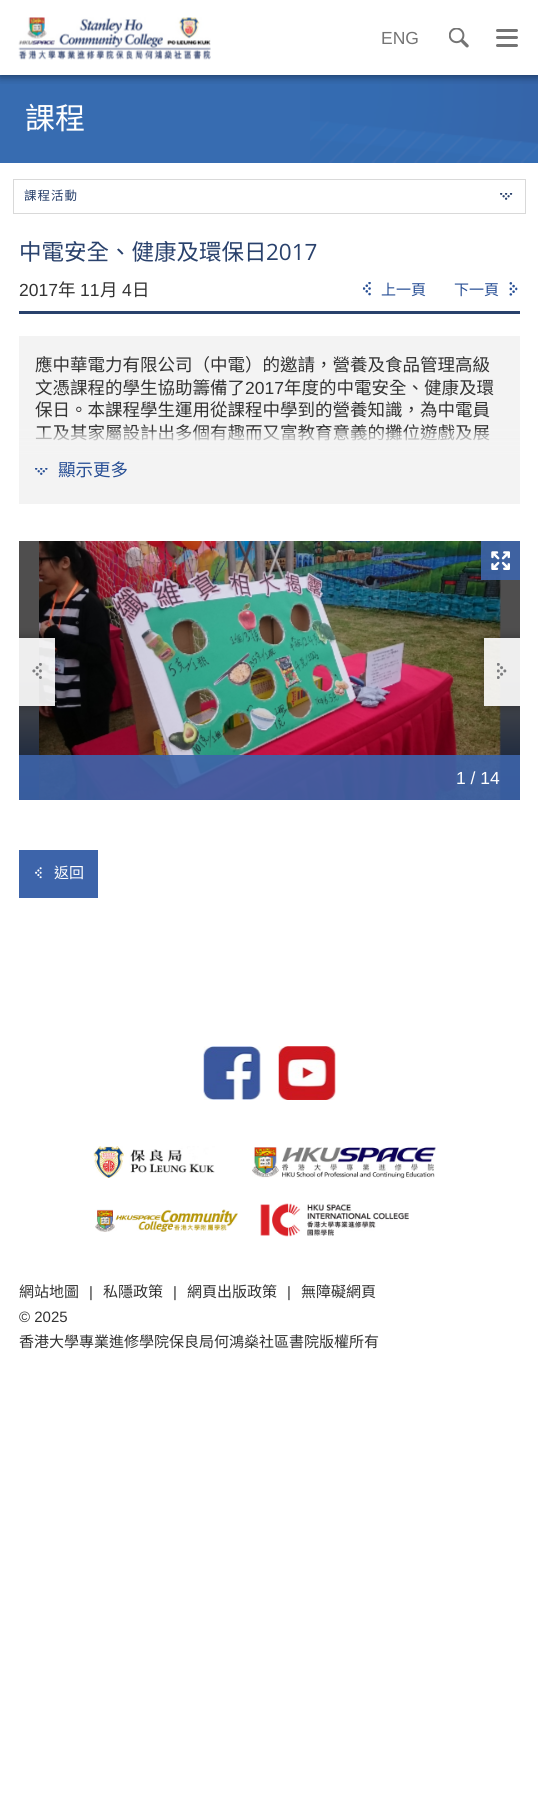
import math
import cairo

surface = cairo.ImageSurface(cairo.FORMAT_RGB24, 538, 1819)
ctx = cairo.Context(surface)
options = cairo.FontOptions()
options.set_hint_metrics(cairo.HINT_METRICS_OFF)
options.set_hint_style(cairo.HINT_STYLE_NONE)
ctx.set_font_options(options)
ctx.set_miter_limit(4)


def spaced_text(x, y, s, letter, word):
    ctx.move_to(x, y)
    for ch in s:
        ctx.show_text(ch)
        ctx.rel_move_to(letter + word * (ch == ' '), 0)


def round_rect(x, y, w, h, r):
    ctx.new_sub_path()
    for i, (u, v) in enumerate([(x + w - r, y + h - r), (x + r, y + h - r), (x + r, y + r), (x + w - r, y + r)]):
        ctx.arc(u, v, r, i * math.pi / 2, (i + 1) * math.pi / 2)
    ctx.close_path()


def shadow(x, y, w, h, r, blur, alpha):
    ctx.push_group_with_content(cairo.CONTENT_ALPHA)
    ctx.set_operator(cairo.OPERATOR_SOURCE)
    for i in range(15, -16, -2):
        e = blur * i / 6
        if min(w, h) + 2 * e > 0:
            ctx.set_source_rgba(0, 0, 0, alpha * math.erfc((i - 1) / 8.5) / 2)
            round_rect(x - e, y - e, w + 2 * e, h + 2 * e, max(0, min(r + e + blur * .6, min(w, h) / 2 + e)))
            ctx.fill()
    ctx.mask(ctx.pop_group())


def picture(path, x, y, w, h):
    ctx.save()
    ctx.set_source_surface(cairo.ImageSurface.create_from_png(path), x, y)
    ctx.rectangle(x, y, w, h)
    ctx.fill()
    ctx.restore()


ctx.set_source_rgb(1, 1, 1)
ctx.paint()
ctx.set_source_rgb(0.216, 0.424, 0.694)
ctx.rectangle(0, 75, 310, 88)
ctx.fill()
picture("img3.png", 310, 75, 228, 88)
ctx.save()
ctx.rectangle(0, 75, 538, 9)
ctx.clip()
ctx.set_source_rgb(0, 0, 0)
shadow(0, 0, 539, 75, 0, 5, 0.61)
ctx.restore()
picture("img1.png", 18, 17, 193, 43)
ctx.select_font_face("Liberation Sans")
ctx.set_font_size(17.5)
ctx.set_source_rgb(0.455, 0.455, 0.455)
ctx.move_to(381, 44)
ctx.show_text("ENG")
picture("img2.png", 449, 28, 20, 20)
round_rect(496, 36, 22, 3, 1.5)
ctx.fill()
round_rect(496, 29, 22, 3, 1.5)
ctx.fill()
round_rect(496, 44, 22, 3, 1.5)
ctx.fill()
ctx.select_font_face("Noto Sans CJK HK")
ctx.set_font_size(30)
ctx.set_source_rgb(1, 1, 1)
ctx.move_to(25, 129)
ctx.show_text("課程")
ctx.rectangle(13.5, 179.5, 512, 34)
ctx.set_source_rgb(0.851, 0.851, 0.851)
ctx.set_line_width(1)
ctx.stroke()
ctx.set_font_size(12.5)
ctx.set_source_rgb(0.161, 0.255, 0.424)
spaced_text(24, 200, "課程活動", 1, 0)
picture("img4.png", 500, 193, 13, 7)
ctx.rectangle(19, 311, 501, 3)
ctx.fill()
ctx.set_font_size(22.5)
ctx.move_to(19, 260)
ctx.show_text("中電安全、健康及環保日")
ctx.select_font_face("Open Sans")
ctx.move_to(266, 260)
ctx.show_text("2017")
ctx.select_font_face("Liberation Sans")
ctx.set_font_size(17.5)
ctx.set_source_rgb(0.2, 0.2, 0.2)
ctx.move_to(19, 296)
ctx.show_text("2017")
ctx.select_font_face("Noto Sans CJK HK")
ctx.move_to(58, 296)
ctx.show_text("年")
ctx.select_font_face("Liberation Sans")
ctx.move_to(80, 296)
ctx.show_text("11")
ctx.select_font_face("Noto Sans CJK HK")
ctx.move_to(100, 296)
ctx.show_text("月")
ctx.select_font_face("Liberation Sans")
ctx.move_to(122, 296)
ctx.show_text("4")
ctx.select_font_face("Noto Sans CJK HK")
ctx.move_to(132, 296)
ctx.show_text("日")
picture("img5.png", 362, 282, 9, 14)
ctx.set_font_size(15)
ctx.set_source_rgb(0.157, 0.31, 0.584)
ctx.move_to(381, 295)
ctx.show_text("上一頁")
ctx.move_to(454, 295)
ctx.show_text("下一頁")
picture("img6.png", 509, 282, 9, 14)
ctx.set_source_rgb(0.953, 0.953, 0.953)
ctx.rectangle(19, 336, 501, 118)
ctx.fill()
ctx.set_font_size(17.5)
ctx.set_source_rgb(0.2, 0.2, 0.2)
ctx.move_to(35, 371)
ctx.show_text("應中華電力有限公司（中電）的邀請，營養及食品管理高級")
ctx.move_to(35, 394)
ctx.show_text("文憑課程的學生協助籌備了")
ctx.select_font_face("Liberation Sans")
ctx.move_to(245, 394)
ctx.show_text("2017")
ctx.select_font_face("Noto Sans CJK HK")
ctx.move_to(284, 394)
ctx.show_text("年度的中電安全、健康及環")
ctx.move_to(35, 416)
ctx.show_text("保日。本課程學生運用從課程中學到的營養知識，為中電員")
ctx.move_to(35, 439)
ctx.show_text("工及其家屬設計出多個有趣而又富教育意義的攤位遊戲及展")
gradient = cairo.LinearGradient(269, 429, 269, 504)
gradient.add_color_stop_rgba(0, 0.953, 0.953, 0.953, 0)
gradient.add_color_stop_rgba(0.07, 0.953, 0.953, 0.953, 0.5)
gradient.add_color_stop_rgba(0.16, 0.953, 0.953, 0.953, 0.8)
gradient.add_color_stop_rgba(0.21, 0.953, 0.953, 0.953, 0.9)
gradient.add_color_stop_rgba(0.34, 0.953, 0.953, 0.953, 1)
gradient.add_color_stop_rgba(1, 0.953, 0.953, 0.953, 1)
ctx.set_source(gradient)
ctx.rectangle(19, 429, 501, 75)
ctx.fill()
picture("img7.png", 35, 468, 13, 7)
ctx.set_source_rgb(0.157, 0.31, 0.584)
ctx.move_to(58, 476)
ctx.show_text("顯示更多")
gradient = cairo.LinearGradient(269, 800, 269, 541)
gradient.add_color_stop_rgba(0, 0.031, 0.098, 0.216, 1)
gradient.add_color_stop_rgba(0.47, 0.31, 0.306, 0.306, 1)
gradient.add_color_stop_rgba(1, 0.31, 0.306, 0.306, 1)
ctx.set_source(gradient)
ctx.rectangle(19, 541, 501, 259)
ctx.fill()
picture("img10.png", 39, 541, 462, 259)
ctx.save()
ctx.rectangle(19, 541, 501, 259)
ctx.clip()
ctx.set_fill_rule(cairo.FILL_RULE_EVEN_ODD)
ctx.new_path()
ctx.move_to(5, 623)
ctx.line_to(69, 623)
ctx.line_to(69, 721)
ctx.line_to(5, 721)
ctx.close_path()
ctx.move_to(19, 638)
ctx.line_to(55, 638)
ctx.line_to(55, 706)
ctx.line_to(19, 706)
ctx.close_path()
ctx.clip()
ctx.set_source_rgb(0, 0, 0)
shadow(18, 636, 38, 72, 0, 4, 0.25)
ctx.restore()
ctx.set_source_rgba(1, 1, 1, 0.9)
ctx.rectangle(19, 638, 36, 68)
ctx.fill()
picture("img8.png", 32, 663, 10, 16)
ctx.save()
ctx.rectangle(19, 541, 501, 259)
ctx.clip()
ctx.set_fill_rule(cairo.FILL_RULE_EVEN_ODD)
ctx.new_path()
ctx.move_to(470, 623)
ctx.line_to(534, 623)
ctx.line_to(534, 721)
ctx.line_to(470, 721)
ctx.close_path()
ctx.move_to(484, 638)
ctx.line_to(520, 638)
ctx.line_to(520, 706)
ctx.line_to(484, 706)
ctx.close_path()
ctx.clip()
ctx.set_source_rgb(0, 0, 0)
shadow(483, 636, 38, 72, 0, 4, 0.25)
ctx.restore()
ctx.rectangle(484, 638, 36, 68)
ctx.fill()
picture("img9.png", 497, 663, 10, 16)
ctx.set_source_rgba(0.239, 0.392, 0.667, 0.9)
ctx.rectangle(481, 541, 39, 39)
ctx.fill()
picture("img11.png", 491, 551, 19, 19)
ctx.rectangle(19, 755, 501, 45)
ctx.fill()
ctx.select_font_face("Liberation Sans")
ctx.set_source_rgb(1, 1, 1)
ctx.move_to(456, 784)
ctx.show_text("1 / 14")
ctx.set_source_rgb(0.239, 0.392, 0.667)
ctx.rectangle(19, 850, 79, 48)
ctx.fill()
picture("img12.png", 35, 867, 7, 12)
ctx.select_font_face("Noto Sans CJK HK")
ctx.set_font_size(15)
ctx.set_source_rgb(1, 1, 1)
ctx.move_to(54, 878)
ctx.show_text("返回")
picture("img13.png", 203, 1046, 58, 54)
picture("img14.png", 278, 1046, 58, 54)
picture("img15.png", 93, 1146, 122, 32)
picture("img16.png", 252, 1147, 184, 32)
picture("img17.png", 95, 1209, 143, 23)
picture("img18.png", 260, 1203, 149, 34)
ctx.set_source_rgb(0.2, 0.2, 0.2)
ctx.move_to(19, 1297)
ctx.show_text("網站地圖")
ctx.select_font_face("Liberation Sans")
ctx.move_to(89, 1297)
ctx.show_text("|")
ctx.select_font_face("Noto Sans CJK HK")
ctx.move_to(103, 1297)
ctx.show_text("私隱政策")
ctx.select_font_face("Liberation Sans")
ctx.move_to(173, 1297)
ctx.show_text("|")
ctx.select_font_face("Noto Sans CJK HK")
ctx.move_to(187, 1297)
ctx.show_text("網頁出版政策")
ctx.select_font_face("Liberation Sans")
ctx.move_to(287, 1297)
ctx.show_text("|")
ctx.select_font_face("Noto Sans CJK HK")
ctx.move_to(301, 1297)
ctx.show_text("無障礙網頁")
ctx.select_font_face("Liberation Sans")
ctx.move_to(19, 1322)
ctx.show_text("© 2025")
ctx.select_font_face("Noto Sans CJK HK")
ctx.move_to(19, 1347)
ctx.show_text("香港大學專業進修學院保良局何鴻燊社區書院版權所有")
surface.write_to_png("page.png")
